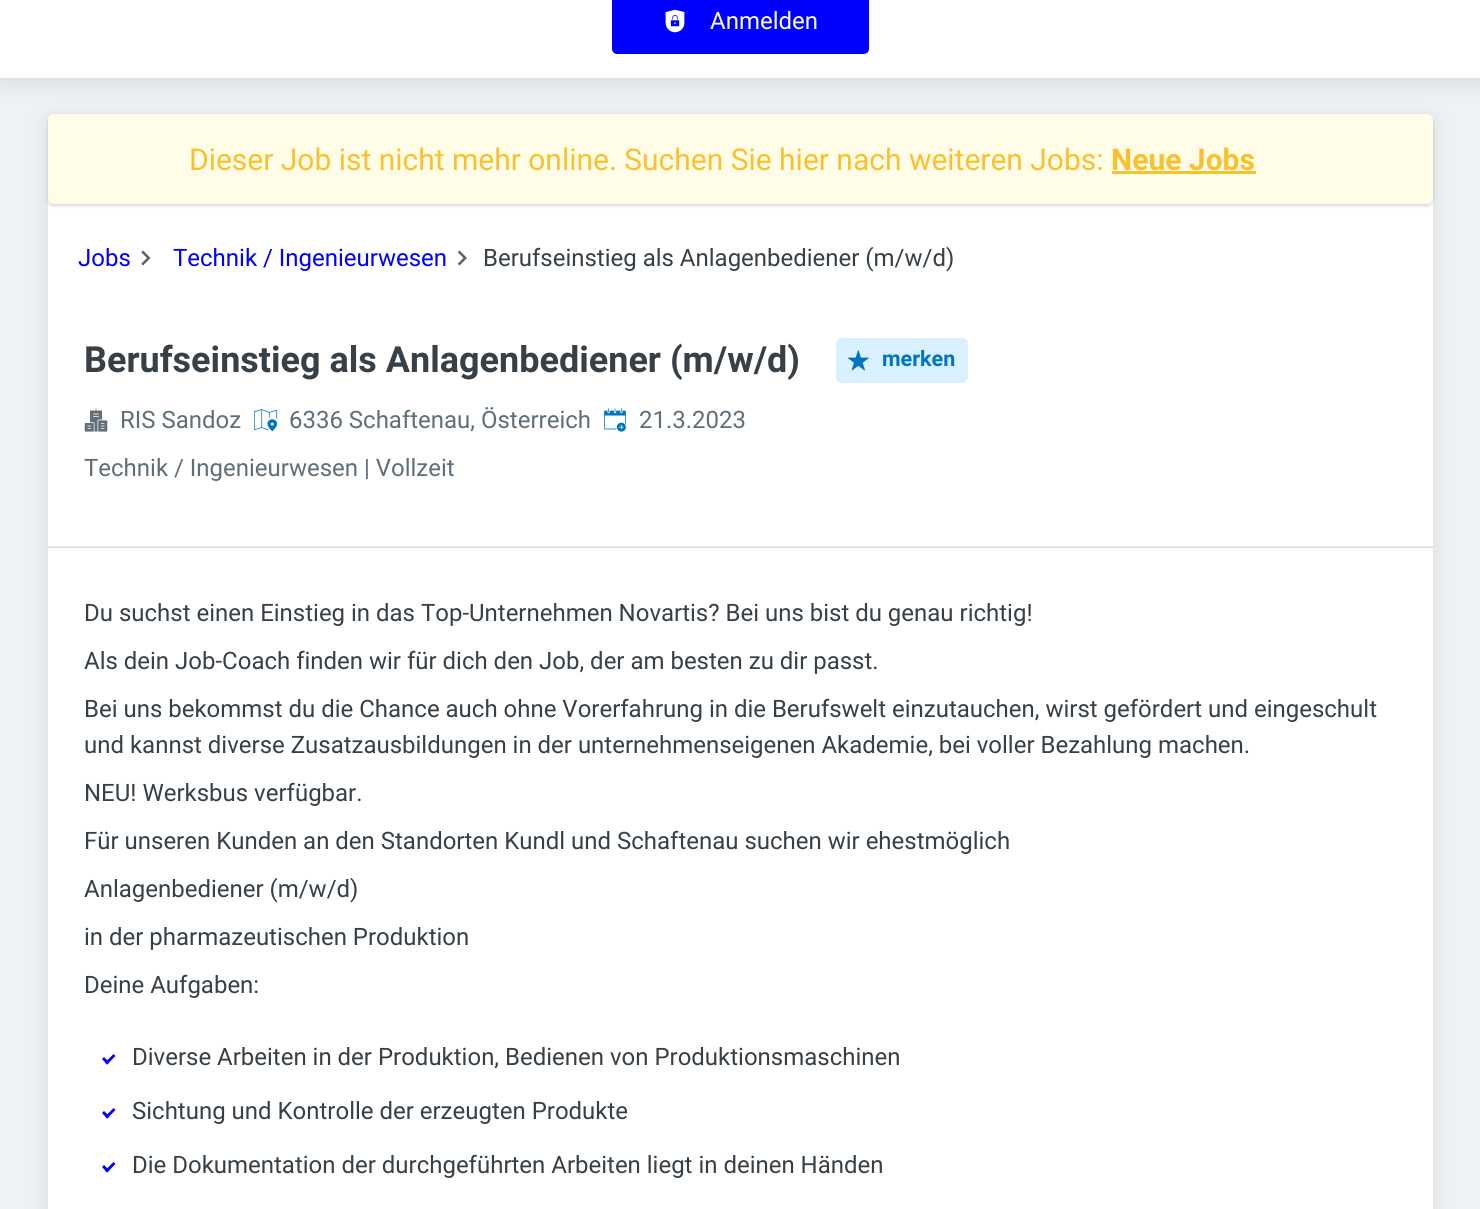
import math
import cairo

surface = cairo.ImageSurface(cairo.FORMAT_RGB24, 1480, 1209)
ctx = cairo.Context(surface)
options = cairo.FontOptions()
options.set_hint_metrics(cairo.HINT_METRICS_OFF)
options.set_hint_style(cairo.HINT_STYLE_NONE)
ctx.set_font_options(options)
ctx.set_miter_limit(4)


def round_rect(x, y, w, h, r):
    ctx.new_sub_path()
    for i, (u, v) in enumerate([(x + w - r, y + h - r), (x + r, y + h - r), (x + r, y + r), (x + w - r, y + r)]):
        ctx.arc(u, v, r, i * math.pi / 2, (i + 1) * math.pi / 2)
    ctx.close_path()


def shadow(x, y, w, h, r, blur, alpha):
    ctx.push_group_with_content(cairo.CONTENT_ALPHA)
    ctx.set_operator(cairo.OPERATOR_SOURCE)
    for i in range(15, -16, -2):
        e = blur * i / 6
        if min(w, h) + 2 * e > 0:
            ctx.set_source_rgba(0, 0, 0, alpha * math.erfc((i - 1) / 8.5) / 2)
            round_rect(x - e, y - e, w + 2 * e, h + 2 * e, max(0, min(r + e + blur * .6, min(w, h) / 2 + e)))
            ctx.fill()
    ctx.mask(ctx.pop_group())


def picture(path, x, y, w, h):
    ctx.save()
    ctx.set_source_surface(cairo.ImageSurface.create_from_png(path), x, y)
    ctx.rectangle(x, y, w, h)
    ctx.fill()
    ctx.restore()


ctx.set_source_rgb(0.937, 0.949, 0.957)
ctx.paint()
ctx.set_source_rgb(0, 0, 0)
shadow(0, -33, 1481, 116, 0, 11, 0.1)
ctx.set_source_rgb(1, 1, 1)
ctx.rectangle(0, 0, 1480, 78)
ctx.fill()
ctx.set_source_rgb(0, 0, 1)
round_rect(613.5, -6.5, 254, 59, 3.5)
ctx.fill_preserve()
ctx.set_line_width(3)
ctx.stroke()
picture("img1.png", 665, 9, 20, 24)
ctx.select_font_face("Roboto")
ctx.set_font_size(24)
ctx.set_source_rgb(1, 1, 1)
ctx.move_to(710, 29)
ctx.show_text("Anmelden")
ctx.set_source_rgb(0, 0, 0)
shadow(48, 119, 1385, 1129, 6, 11, 0.1)
ctx.set_source_rgb(1, 1, 1)
round_rect(48, 114, 1385, 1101, 6)
ctx.fill()
ctx.set_source_rgb(0, 0, 0)
shadow(48, 116, 1385, 90, 6, 1.5, 0.06)
shadow(48, 116, 1385, 90, 6, 2, 0.1)
ctx.set_source_rgb(1, 0.992, 0.906)
round_rect(49.5, 115.5, 1382, 87, 4.5)
ctx.fill_preserve()
ctx.stroke()
ctx.set_font_size(30)
ctx.set_source_rgb(0.984, 0.753, 0.176)
ctx.move_to(189, 170)
ctx.show_text("Dieser Job ist nicht mehr online. Suchen Sie hier nach weiteren Jobs:")
ctx.select_font_face("Roboto", cairo.FONT_SLANT_NORMAL, cairo.FONT_WEIGHT_BOLD)
ctx.move_to(1111, 170)
ctx.show_text("Neue Jobs")
ctx.rectangle(1112, 171, 144, 3)
ctx.fill()
ctx.select_font_face("Roboto")
ctx.set_font_size(24)
ctx.set_source_rgb(0, 0, 1)
ctx.move_to(78, 266)
ctx.show_text("Jobs")
picture("img2.png", 141, 250, 10, 16)
ctx.move_to(173, 266)
ctx.show_text("Technik / Ingenieurwesen")
picture("img3.png", 457, 250, 10, 16)
ctx.set_source_rgb(0.216, 0.251, 0.278)
ctx.move_to(483, 266)
ctx.show_text("Berufseinstieg als Anlagenbediener (m/w/d)")
ctx.set_source_rgb(0.875, 0.894, 0.918)
ctx.rectangle(48, 546, 1385, 2)
ctx.fill()
ctx.select_font_face("Roboto", cairo.FONT_SLANT_NORMAL, cairo.FONT_WEIGHT_BOLD)
ctx.set_font_size(36)
ctx.set_source_rgb(0.216, 0.251, 0.278)
ctx.move_to(84, 372)
ctx.show_text("Berufseinstieg als Anlagenbediener (m/w/d)")
ctx.set_source_rgb(0.847, 0.941, 1)
round_rect(836, 338, 132, 45, 6)
ctx.fill()
picture("img4.png", 848, 350, 21, 21)
ctx.set_font_size(21.5)
ctx.set_source_rgb(0, 0.459, 0.749)
ctx.move_to(882, 366)
ctx.show_text("merken")
picture("img5.png", 84, 408, 24, 24)
ctx.select_font_face("Roboto")
ctx.set_font_size(24)
ctx.set_source_rgb(0.373, 0.431, 0.471)
ctx.move_to(120, 428)
ctx.show_text("RIS Sandoz")
picture("img6.png", 254, 409, 24, 23)
ctx.move_to(289, 428)
ctx.show_text("6336 Schaftenau, Österreich")
picture("img7.png", 604, 408, 22, 24)
ctx.move_to(639, 428)
ctx.show_text("21.3.2023")
ctx.move_to(84, 476)
ctx.show_text("Technik / Ingenieurwesen | Vollzeit")
ctx.set_source_rgb(0.216, 0.251, 0.278)
ctx.move_to(84, 621)
ctx.show_text("Du suchst einen Einstieg in das Top-Unternehmen Novartis? Bei uns bist du genau richtig!")
ctx.move_to(84, 669)
ctx.show_text("Als dein Job-Coach finden wir für dich den Job, der am besten zu dir passt.")
ctx.move_to(84, 717)
ctx.show_text("Bei uns bekommst du die Chance auch ohne Vorerfahrung in die Berufswelt einzutauchen, wirst gefördert und eingeschult")
ctx.move_to(84, 753)
ctx.show_text("und kannst diverse Zusatzausbildungen in der unternehmenseigenen Akademie, bei voller Bezahlung machen.")
ctx.move_to(84, 801)
ctx.show_text("NEU! Werksbus verfügbar.")
ctx.move_to(84, 849)
ctx.show_text("Für unseren Kunden an den Standorten Kundl und Schaftenau suchen wir ehestmöglich")
ctx.move_to(84, 897)
ctx.show_text("Anlagenbediener (m/w/d)")
ctx.move_to(84, 945)
ctx.show_text("in der pharmazeutischen Produktion")
ctx.move_to(84, 993)
ctx.show_text("Deine Aufgaben:")
ctx.set_source_rgb(0, 0, 1)
ctx.new_path()
ctx.move_to(113.5, 1054)
ctx.line_to(115.5, 1056)
ctx.line_to(107, 1064.5)
ctx.line_to(105, 1062.5)
ctx.close_path()
ctx.fill()
ctx.new_path()
ctx.move_to(104, 1057)
ctx.line_to(109.5, 1062.5)
ctx.line_to(107, 1064.5)
ctx.line_to(102, 1059)
ctx.close_path()
ctx.fill()
ctx.set_source_rgb(0.216, 0.251, 0.278)
ctx.move_to(132, 1065)
ctx.show_text("Diverse Arbeiten in der Produktion, Bedienen von Produktionsmaschinen")
ctx.set_source_rgb(0, 0, 1)
ctx.new_path()
ctx.move_to(113.5, 1108)
ctx.line_to(115.5, 1110)
ctx.line_to(107, 1118.5)
ctx.line_to(105, 1116.5)
ctx.close_path()
ctx.fill()
ctx.new_path()
ctx.move_to(104, 1111)
ctx.line_to(109.5, 1116.5)
ctx.line_to(107, 1118.5)
ctx.line_to(102, 1113)
ctx.close_path()
ctx.fill()
ctx.set_source_rgb(0.216, 0.251, 0.278)
ctx.move_to(132, 1119)
ctx.show_text("Sichtung und Kontrolle der erzeugten Produkte")
ctx.set_source_rgb(0, 0, 1)
ctx.new_path()
ctx.move_to(113.5, 1162)
ctx.line_to(115.5, 1164)
ctx.line_to(107, 1172.5)
ctx.line_to(105, 1170.5)
ctx.close_path()
ctx.fill()
ctx.new_path()
ctx.move_to(104, 1165)
ctx.line_to(109.5, 1170.5)
ctx.line_to(107, 1172.5)
ctx.line_to(102, 1167)
ctx.close_path()
ctx.fill()
ctx.set_source_rgb(0.216, 0.251, 0.278)
ctx.move_to(132, 1173)
ctx.show_text("Die Dokumentation der durchgeführten Arbeiten liegt in deinen Händen")
surface.write_to_png("page.png")
